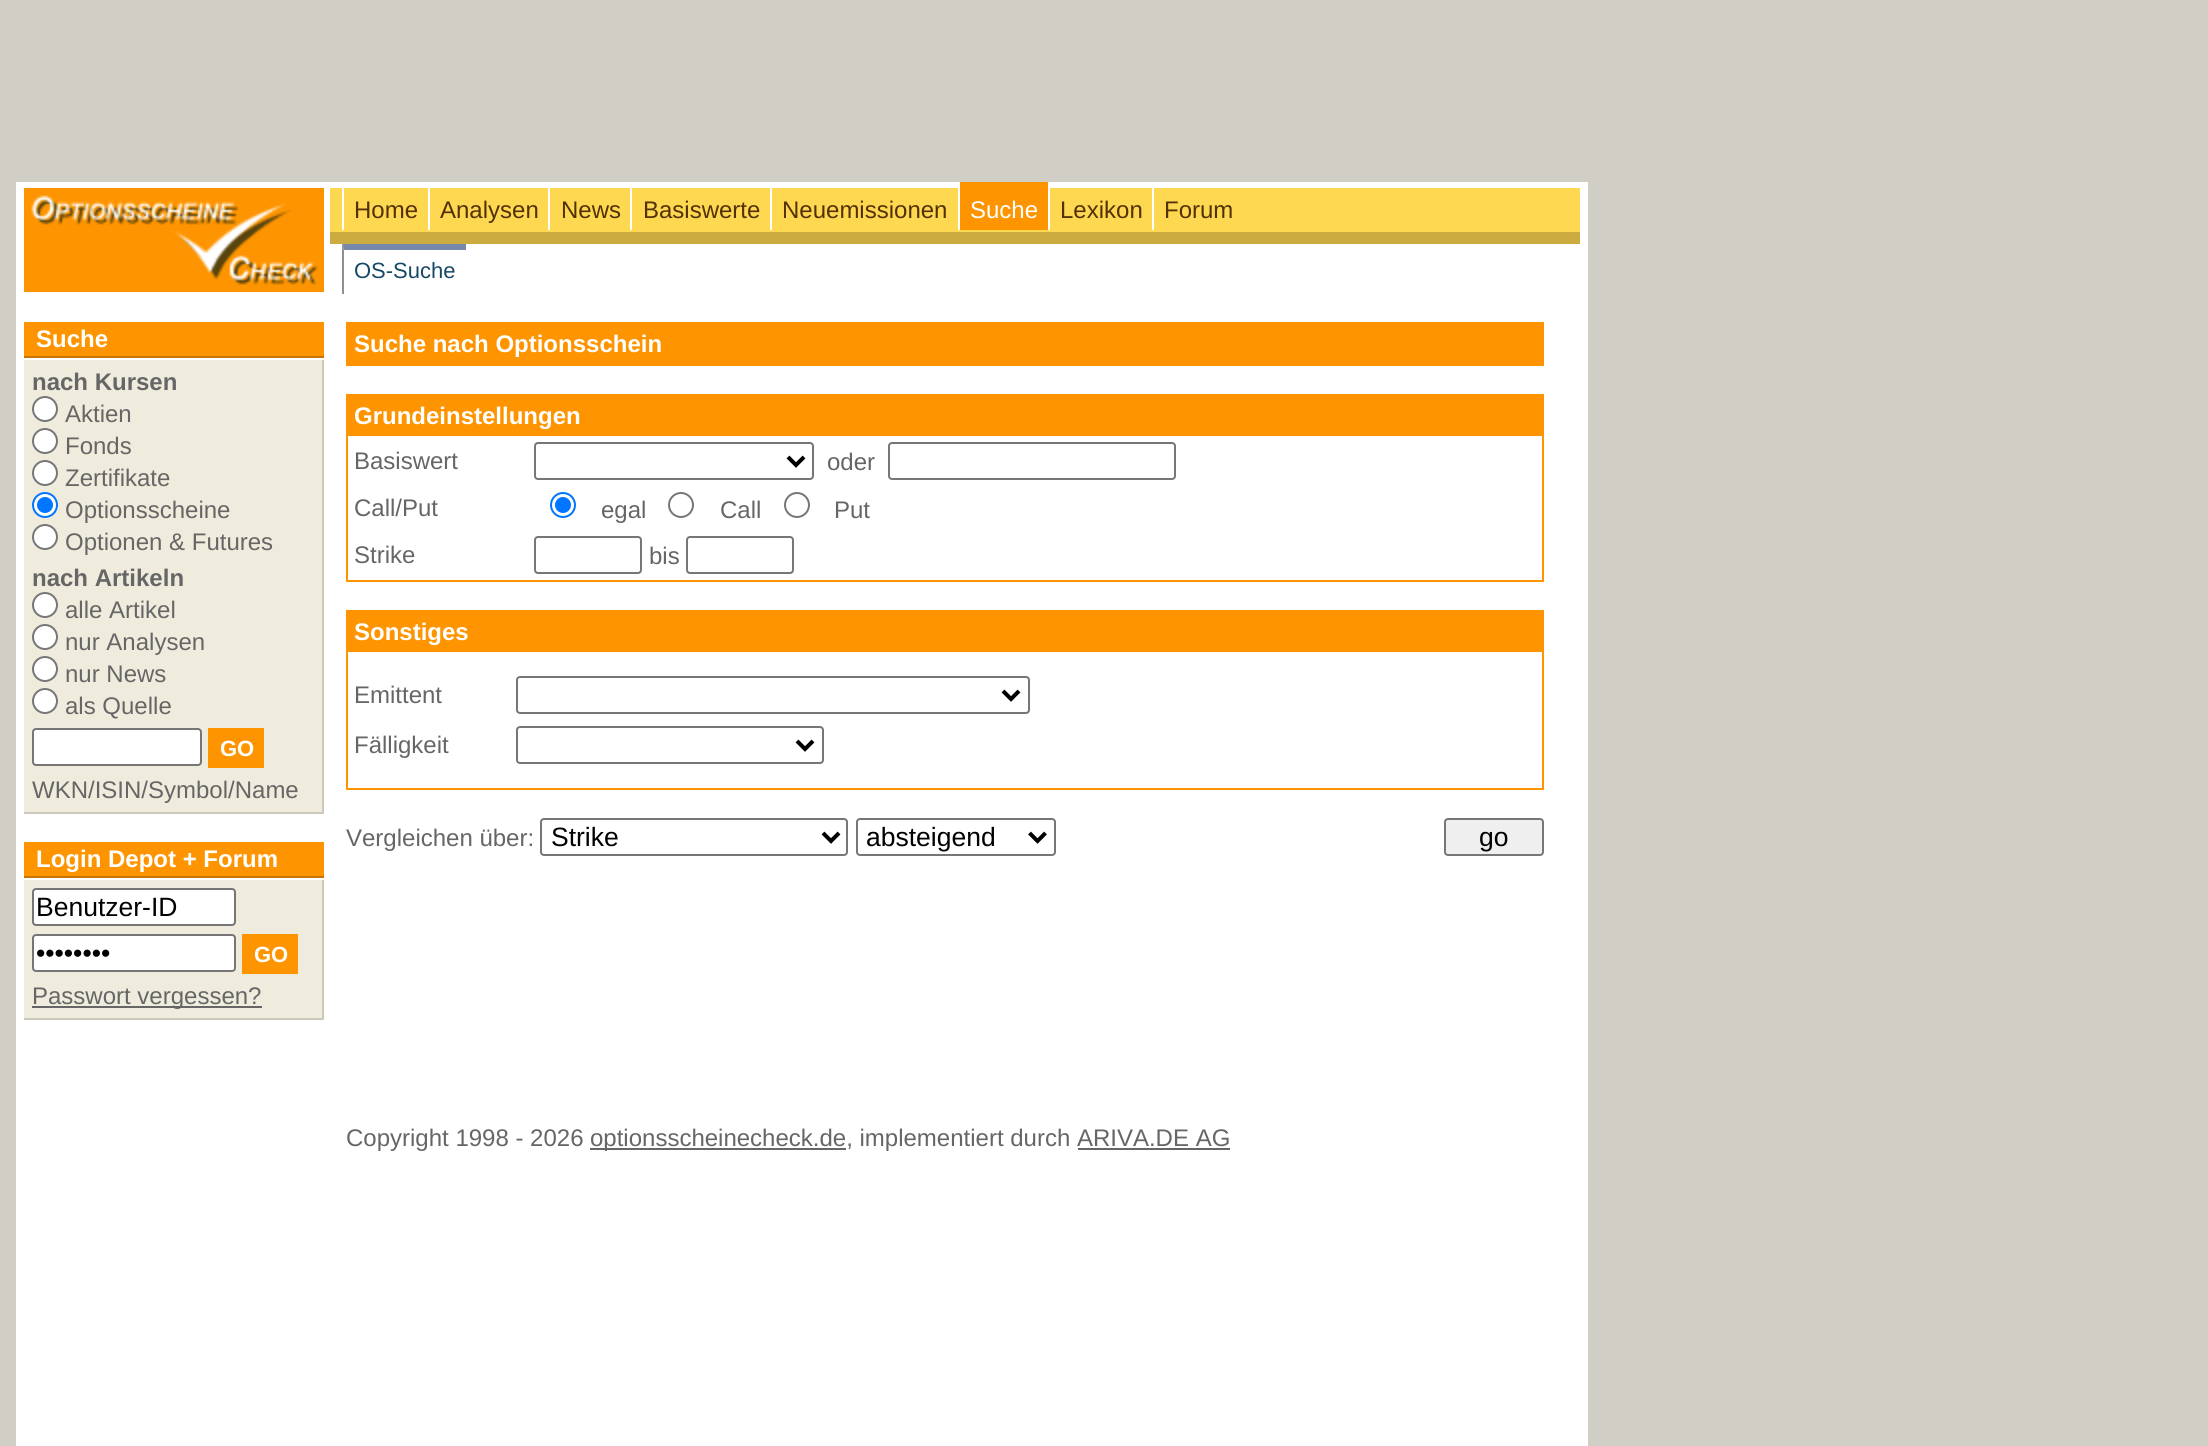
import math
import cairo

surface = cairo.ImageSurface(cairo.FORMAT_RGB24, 2208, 1446)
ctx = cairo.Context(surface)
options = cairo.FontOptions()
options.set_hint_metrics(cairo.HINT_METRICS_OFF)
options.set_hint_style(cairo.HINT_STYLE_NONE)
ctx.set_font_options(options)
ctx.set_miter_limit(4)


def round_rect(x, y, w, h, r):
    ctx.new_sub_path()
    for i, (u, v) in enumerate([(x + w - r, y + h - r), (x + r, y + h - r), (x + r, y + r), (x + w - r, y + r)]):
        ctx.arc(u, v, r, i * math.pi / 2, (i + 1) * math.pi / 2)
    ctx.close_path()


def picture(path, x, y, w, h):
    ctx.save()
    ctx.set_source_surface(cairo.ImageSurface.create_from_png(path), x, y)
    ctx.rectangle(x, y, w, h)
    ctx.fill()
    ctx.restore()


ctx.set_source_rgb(0.82, 0.808, 0.773)
ctx.paint()
ctx.set_source_rgb(1, 1, 1)
ctx.rectangle(16, 182, 1572, 1264)
ctx.fill()
picture("img1.png", 24, 188, 300, 104)
ctx.set_source_rgb(1, 0.847, 0.322)
ctx.rectangle(330, 188, 1250, 44)
ctx.fill()
ctx.set_source_rgb(1, 1, 1)
ctx.rectangle(342, 188, 2, 42)
ctx.fill()
ctx.select_font_face("Liberation Sans")
ctx.set_font_size(24)
ctx.set_source_rgb(0.322, 0.196, 0.02)
ctx.move_to(354, 218)
ctx.show_text("Home")
ctx.set_source_rgb(1, 1, 1)
ctx.rectangle(428, 188, 2, 42)
ctx.fill()
ctx.set_source_rgb(0.322, 0.196, 0.02)
ctx.move_to(440, 218)
ctx.show_text("Analysen")
ctx.set_source_rgb(1, 1, 1)
ctx.rectangle(548, 188, 2, 42)
ctx.fill()
ctx.set_source_rgb(0.322, 0.196, 0.02)
ctx.move_to(561, 218)
ctx.show_text("News")
ctx.set_source_rgb(1, 1, 1)
ctx.rectangle(630, 188, 2, 42)
ctx.fill()
ctx.set_source_rgb(0.322, 0.196, 0.02)
ctx.move_to(643, 218)
ctx.show_text("Basiswerte")
ctx.set_source_rgb(1, 1, 1)
ctx.rectangle(770, 188, 2, 42)
ctx.fill()
ctx.set_source_rgb(0.322, 0.196, 0.02)
ctx.move_to(782, 218)
ctx.show_text("Neuemissionen")
ctx.set_source_rgb(0.996, 0.584, 0)
ctx.rectangle(960, 182, 88, 48)
ctx.fill()
ctx.set_source_rgb(1, 1, 1)
ctx.rectangle(958, 182, 2, 48)
ctx.fill()
ctx.move_to(970, 218)
ctx.show_text("Suche")
ctx.rectangle(1048, 188, 2, 42)
ctx.fill()
ctx.set_source_rgb(0.322, 0.196, 0.02)
ctx.move_to(1060, 218)
ctx.show_text("Lexikon")
ctx.set_source_rgb(1, 1, 1)
ctx.rectangle(1152, 188, 2, 42)
ctx.fill()
ctx.set_source_rgb(0.322, 0.196, 0.02)
ctx.move_to(1164, 218)
ctx.show_text("Forum")
ctx.set_source_rgb(0.8, 0.675, 0.255)
ctx.rectangle(330, 232, 1250, 12)
ctx.fill()
ctx.set_source_rgb(0.463, 0.533, 0.675)
ctx.new_path()
ctx.move_to(342, 244)
ctx.line_to(466, 244)
ctx.line_to(466, 250)
ctx.line_to(344, 250)
ctx.close_path()
ctx.fill()
ctx.set_source_rgb(0.565, 0.565, 0.565)
ctx.new_path()
ctx.move_to(342, 294)
ctx.line_to(342, 244)
ctx.line_to(344, 250)
ctx.line_to(344, 294)
ctx.close_path()
ctx.fill()
ctx.set_font_size(22)
ctx.set_source_rgb(0.094, 0.282, 0.404)
ctx.move_to(354, 278)
ctx.show_text("OS-Suche")
ctx.set_source_rgb(0.996, 0.584, 0)
ctx.rectangle(24, 322, 300, 34)
ctx.fill()
ctx.set_source_rgb(0.788, 0.463, 0)
ctx.rectangle(24, 356, 300, 2)
ctx.fill()
ctx.select_font_face("Liberation Sans", cairo.FONT_SLANT_NORMAL, cairo.FONT_WEIGHT_BOLD)
ctx.set_font_size(24)
ctx.set_source_rgb(1, 1, 1)
ctx.move_to(36, 347)
ctx.show_text("Suche")
ctx.set_source_rgb(0.941, 0.922, 0.867)
ctx.rectangle(24, 360, 298, 452)
ctx.fill()
ctx.set_source_rgb(0.8, 0.784, 0.737)
ctx.rectangle(322, 360, 2, 454)
ctx.fill()
ctx.rectangle(24, 812, 300, 2)
ctx.fill()
ctx.set_source_rgb(0.4, 0.4, 0.4)
ctx.move_to(32, 390)
ctx.show_text("nach Kursen")
ctx.set_source_rgb(1, 1, 1)
ctx.new_path()
ctx.arc(45, 409, 12, 0, 2 * math.pi)
ctx.fill_preserve()
ctx.set_source_rgb(0.463, 0.463, 0.463)
ctx.stroke()
ctx.select_font_face("Liberation Sans")
ctx.set_source_rgb(0.4, 0.4, 0.4)
ctx.move_to(65, 422)
ctx.show_text("Aktien")
ctx.set_source_rgb(1, 1, 1)
ctx.new_path()
ctx.arc(45, 441, 12, 0, 2 * math.pi)
ctx.fill_preserve()
ctx.set_source_rgb(0.463, 0.463, 0.463)
ctx.stroke()
ctx.set_source_rgb(0.4, 0.4, 0.4)
ctx.move_to(65, 454)
ctx.show_text("Fonds")
ctx.set_source_rgb(1, 1, 1)
ctx.new_path()
ctx.arc(45, 473, 12, 0, 2 * math.pi)
ctx.fill_preserve()
ctx.set_source_rgb(0.463, 0.463, 0.463)
ctx.stroke()
ctx.set_source_rgb(0.4, 0.4, 0.4)
ctx.move_to(65, 486)
ctx.show_text("Zertifikate")
ctx.set_source_rgb(1, 1, 1)
ctx.new_path()
ctx.arc(45, 505, 12, 0, 2 * math.pi)
ctx.fill_preserve()
ctx.set_source_rgb(0, 0.459, 1)
ctx.stroke()
ctx.arc(45, 505, 8, 0, 2 * math.pi)
ctx.fill()
ctx.set_source_rgb(0.4, 0.4, 0.4)
ctx.move_to(65, 518)
ctx.show_text("Optionsscheine")
ctx.set_source_rgb(1, 1, 1)
ctx.new_path()
ctx.arc(45, 537, 12, 0, 2 * math.pi)
ctx.fill_preserve()
ctx.set_source_rgb(0.463, 0.463, 0.463)
ctx.stroke()
ctx.set_source_rgb(0.4, 0.4, 0.4)
ctx.move_to(65, 550)
ctx.show_text("Optionen & Futures")
ctx.select_font_face("Liberation Sans", cairo.FONT_SLANT_NORMAL, cairo.FONT_WEIGHT_BOLD)
ctx.move_to(32, 586)
ctx.show_text("nach Artikeln")
ctx.set_source_rgb(1, 1, 1)
ctx.new_path()
ctx.arc(45, 605, 12, 0, 2 * math.pi)
ctx.fill_preserve()
ctx.set_source_rgb(0.463, 0.463, 0.463)
ctx.stroke()
ctx.select_font_face("Liberation Sans")
ctx.set_source_rgb(0.4, 0.4, 0.4)
ctx.move_to(65, 618)
ctx.show_text("alle Artikel")
ctx.set_source_rgb(1, 1, 1)
ctx.new_path()
ctx.arc(45, 637, 12, 0, 2 * math.pi)
ctx.fill_preserve()
ctx.set_source_rgb(0.463, 0.463, 0.463)
ctx.stroke()
ctx.set_source_rgb(0.4, 0.4, 0.4)
ctx.move_to(65, 650)
ctx.show_text("nur Analysen")
ctx.set_source_rgb(1, 1, 1)
ctx.new_path()
ctx.arc(45, 669, 12, 0, 2 * math.pi)
ctx.fill_preserve()
ctx.set_source_rgb(0.463, 0.463, 0.463)
ctx.stroke()
ctx.set_source_rgb(0.4, 0.4, 0.4)
ctx.move_to(65, 682)
ctx.show_text("nur News")
ctx.set_source_rgb(1, 1, 1)
ctx.new_path()
ctx.arc(45, 701, 12, 0, 2 * math.pi)
ctx.fill_preserve()
ctx.set_source_rgb(0.463, 0.463, 0.463)
ctx.stroke()
ctx.set_source_rgb(0.4, 0.4, 0.4)
ctx.move_to(65, 714)
ctx.show_text("als Quelle")
ctx.set_source_rgb(1, 1, 1)
round_rect(33, 729, 168, 36, 3)
ctx.fill_preserve()
ctx.set_source_rgb(0.463, 0.463, 0.463)
ctx.stroke()
ctx.set_source_rgb(0.996, 0.584, 0)
ctx.rectangle(208, 728, 56, 40)
ctx.fill()
ctx.select_font_face("Liberation Sans", cairo.FONT_SLANT_NORMAL, cairo.FONT_WEIGHT_BOLD)
ctx.set_font_size(22)
ctx.set_source_rgb(1, 1, 1)
ctx.move_to(220, 756)
ctx.show_text("GO")
ctx.select_font_face("Liberation Sans")
ctx.set_font_size(24)
ctx.set_source_rgb(0.4, 0.4, 0.4)
ctx.move_to(32, 798)
ctx.show_text("WKN/ISIN/Symbol/Name")
ctx.set_source_rgb(0.996, 0.584, 0)
ctx.rectangle(24, 842, 300, 34)
ctx.fill()
ctx.set_source_rgb(0.788, 0.463, 0)
ctx.rectangle(24, 876, 300, 2)
ctx.fill()
ctx.select_font_face("Liberation Sans", cairo.FONT_SLANT_NORMAL, cairo.FONT_WEIGHT_BOLD)
ctx.set_source_rgb(1, 1, 1)
ctx.move_to(36, 867)
ctx.show_text("Login Depot + Forum")
ctx.set_source_rgb(0.941, 0.922, 0.867)
ctx.rectangle(24, 880, 298, 138)
ctx.fill()
ctx.set_source_rgb(0.8, 0.784, 0.737)
ctx.rectangle(322, 880, 2, 140)
ctx.fill()
ctx.rectangle(24, 1018, 300, 2)
ctx.fill()
ctx.set_source_rgb(1, 1, 1)
round_rect(33, 889, 202, 36, 3)
ctx.fill_preserve()
ctx.set_source_rgb(0.463, 0.463, 0.463)
ctx.stroke()
ctx.select_font_face("Liberation Sans")
ctx.set_font_size(26.5)
ctx.set_source_rgb(0, 0, 0)
ctx.move_to(36, 916)
ctx.show_text("Benutzer-ID")
ctx.set_source_rgb(1, 1, 1)
round_rect(33, 935, 202, 36, 3)
ctx.fill_preserve()
ctx.set_source_rgb(0.463, 0.463, 0.463)
ctx.stroke()
ctx.set_source_rgb(0, 0, 0)
ctx.move_to(36, 962)
ctx.show_text("••••••••")
ctx.set_source_rgb(0.996, 0.584, 0)
ctx.rectangle(242, 934, 56, 40)
ctx.fill()
ctx.select_font_face("Liberation Sans", cairo.FONT_SLANT_NORMAL, cairo.FONT_WEIGHT_BOLD)
ctx.set_font_size(22)
ctx.set_source_rgb(1, 1, 1)
ctx.move_to(254, 962)
ctx.show_text("GO")
ctx.set_source_rgb(0.4, 0.4, 0.4)
ctx.rectangle(32, 1006, 230, 2)
ctx.fill()
ctx.select_font_face("Liberation Sans")
ctx.set_font_size(24)
ctx.move_to(32, 1004)
ctx.show_text("Passwort vergessen?")
ctx.set_source_rgb(0.996, 0.584, 0)
ctx.rectangle(346, 322, 1198, 2)
ctx.fill()
ctx.rectangle(346, 364, 1198, 2)
ctx.fill()
ctx.rectangle(346, 322, 2, 44)
ctx.fill()
ctx.rectangle(348, 324, 1196, 40)
ctx.fill()
ctx.select_font_face("Liberation Sans", cairo.FONT_SLANT_NORMAL, cairo.FONT_WEIGHT_BOLD)
ctx.set_source_rgb(1, 1, 1)
ctx.move_to(354, 352)
ctx.show_text("Suche nach Optionsschein")
ctx.set_source_rgb(0.996, 0.584, 0)
ctx.rectangle(346, 394, 1198, 2)
ctx.fill()
ctx.rectangle(1542, 394, 2, 188)
ctx.fill()
ctx.rectangle(346, 580, 1198, 2)
ctx.fill()
ctx.rectangle(346, 394, 2, 188)
ctx.fill()
ctx.rectangle(348, 396, 1194, 40)
ctx.fill()
ctx.set_source_rgb(1, 1, 1)
ctx.move_to(354, 424)
ctx.show_text("Grundeinstellungen")
ctx.select_font_face("Liberation Sans")
ctx.set_source_rgb(0.4, 0.4, 0.4)
ctx.move_to(354, 469)
ctx.show_text("Basiswert")
round_rect(535, 443, 278, 36, 3)
ctx.set_source_rgb(0.463, 0.463, 0.463)
ctx.stroke()
ctx.new_path()
ctx.move_to(788, 457)
ctx.line_to(796, 465)
ctx.line_to(804, 457)
ctx.set_source_rgb(0, 0, 0)
ctx.set_line_width(4)
ctx.stroke()
ctx.set_source_rgb(0.4, 0.4, 0.4)
ctx.move_to(827, 470)
ctx.show_text("oder")
round_rect(889, 443, 286, 36, 3)
ctx.set_source_rgb(0.463, 0.463, 0.463)
ctx.set_line_width(2)
ctx.stroke()
ctx.set_source_rgb(0.4, 0.4, 0.4)
ctx.move_to(354, 516)
ctx.show_text("Call/Put")
ctx.new_path()
ctx.arc(563, 505, 12, 0, 2 * math.pi)
ctx.set_source_rgb(0, 0.459, 1)
ctx.stroke()
ctx.arc(563, 505, 8, 0, 2 * math.pi)
ctx.fill()
ctx.set_source_rgb(0.4, 0.4, 0.4)
ctx.move_to(601, 518)
ctx.show_text("egal")
ctx.new_path()
ctx.arc(681, 505, 12, 0, 2 * math.pi)
ctx.set_source_rgb(0.463, 0.463, 0.463)
ctx.stroke()
ctx.set_source_rgb(0.4, 0.4, 0.4)
ctx.move_to(720, 518)
ctx.show_text("Call")
ctx.new_path()
ctx.arc(797, 505, 12, 0, 2 * math.pi)
ctx.set_source_rgb(0.463, 0.463, 0.463)
ctx.stroke()
ctx.set_source_rgb(0.4, 0.4, 0.4)
ctx.move_to(834, 518)
ctx.show_text("Put")
ctx.move_to(354, 563)
ctx.show_text("Strike")
round_rect(535, 537, 106, 36, 3)
ctx.set_source_rgb(0.463, 0.463, 0.463)
ctx.stroke()
ctx.set_source_rgb(0.4, 0.4, 0.4)
ctx.move_to(649, 564)
ctx.show_text("bis")
round_rect(687, 537, 106, 36, 3)
ctx.set_source_rgb(0.463, 0.463, 0.463)
ctx.stroke()
ctx.set_source_rgb(0.996, 0.584, 0)
ctx.rectangle(346, 610, 1198, 2)
ctx.fill()
ctx.rectangle(1542, 610, 2, 180)
ctx.fill()
ctx.rectangle(346, 788, 1198, 2)
ctx.fill()
ctx.rectangle(346, 610, 2, 180)
ctx.fill()
ctx.rectangle(348, 612, 1194, 40)
ctx.fill()
ctx.select_font_face("Liberation Sans", cairo.FONT_SLANT_NORMAL, cairo.FONT_WEIGHT_BOLD)
ctx.set_source_rgb(1, 1, 1)
ctx.move_to(354, 640)
ctx.show_text("Sonstiges")
ctx.select_font_face("Liberation Sans")
ctx.set_source_rgb(0.4, 0.4, 0.4)
ctx.move_to(354, 703)
ctx.show_text("Emittent")
round_rect(517, 677, 512, 36, 3)
ctx.set_source_rgb(0.463, 0.463, 0.463)
ctx.stroke()
ctx.new_path()
ctx.move_to(1003, 691)
ctx.line_to(1011, 699)
ctx.line_to(1019, 691)
ctx.set_source_rgb(0, 0, 0)
ctx.set_line_width(4)
ctx.stroke()
ctx.set_source_rgb(0.4, 0.4, 0.4)
ctx.move_to(354, 753)
ctx.show_text("Fälligkeit")
round_rect(517, 727, 306, 36, 3)
ctx.set_source_rgb(0.463, 0.463, 0.463)
ctx.set_line_width(2)
ctx.stroke()
ctx.new_path()
ctx.move_to(797, 741)
ctx.line_to(805, 749)
ctx.line_to(813, 741)
ctx.set_source_rgb(0, 0, 0)
ctx.set_line_width(4)
ctx.stroke()
ctx.set_source_rgb(0.4, 0.4, 0.4)
ctx.move_to(346, 846)
ctx.show_text("Vergleichen über:")
round_rect(541, 819, 306, 36, 3)
ctx.set_source_rgb(0.463, 0.463, 0.463)
ctx.set_line_width(2)
ctx.stroke()
ctx.new_path()
ctx.move_to(823, 833)
ctx.line_to(831, 841)
ctx.line_to(839, 833)
ctx.set_source_rgb(0, 0, 0)
ctx.set_line_width(4)
ctx.stroke()
ctx.set_font_size(26.5)
ctx.move_to(551, 846)
ctx.show_text("Strike")
round_rect(857, 819, 198, 36, 3)
ctx.set_source_rgb(0.463, 0.463, 0.463)
ctx.set_line_width(2)
ctx.stroke()
ctx.new_path()
ctx.move_to(1029.5, 833)
ctx.line_to(1037.5, 841)
ctx.line_to(1045.5, 833)
ctx.set_source_rgb(0, 0, 0)
ctx.set_line_width(4)
ctx.stroke()
ctx.move_to(866, 846)
ctx.show_text("absteigend")
ctx.set_source_rgb(0.937, 0.937, 0.937)
round_rect(1445, 819, 98, 36, 3)
ctx.fill_preserve()
ctx.set_source_rgb(0.463, 0.463, 0.463)
ctx.set_line_width(2)
ctx.stroke()
ctx.set_source_rgb(0, 0, 0)
ctx.move_to(1479, 846)
ctx.show_text("go")
ctx.set_font_size(24)
ctx.set_source_rgb(0.4, 0.4, 0.4)
ctx.move_to(346, 1146)
ctx.show_text("Copyright 1998 - 2026")
ctx.rectangle(590, 1148, 256, 2)
ctx.fill()
ctx.move_to(590, 1146)
ctx.show_text("optionsscheinecheck.de, implementiert durch ARIVA.DE AG")
ctx.rectangle(1078, 1148, 152, 2)
ctx.fill()
surface.write_to_png("page.png")
